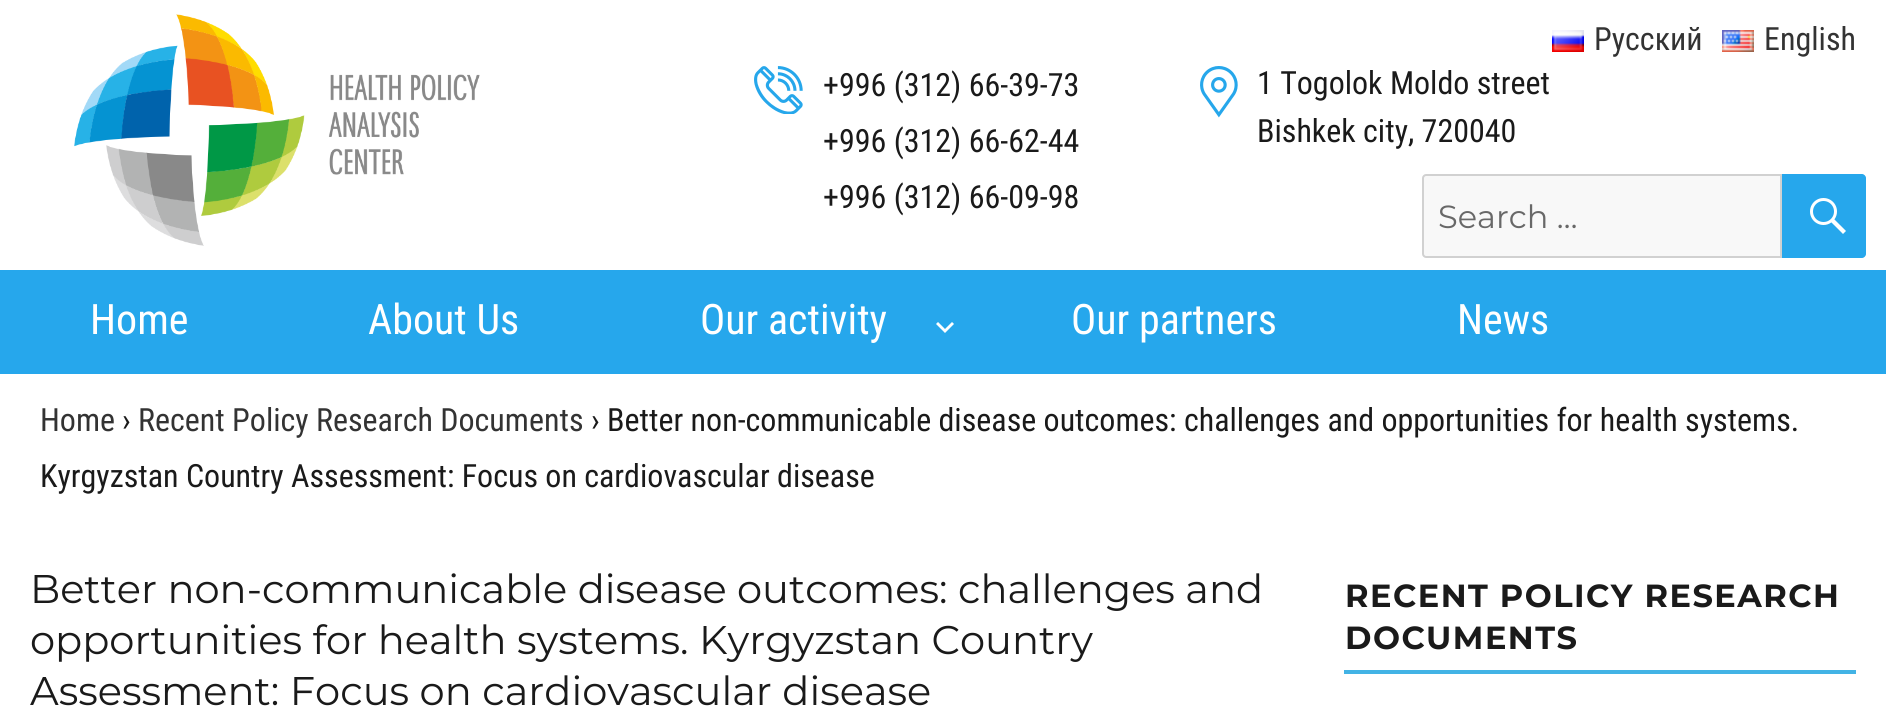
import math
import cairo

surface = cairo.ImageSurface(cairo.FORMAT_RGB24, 1886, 714)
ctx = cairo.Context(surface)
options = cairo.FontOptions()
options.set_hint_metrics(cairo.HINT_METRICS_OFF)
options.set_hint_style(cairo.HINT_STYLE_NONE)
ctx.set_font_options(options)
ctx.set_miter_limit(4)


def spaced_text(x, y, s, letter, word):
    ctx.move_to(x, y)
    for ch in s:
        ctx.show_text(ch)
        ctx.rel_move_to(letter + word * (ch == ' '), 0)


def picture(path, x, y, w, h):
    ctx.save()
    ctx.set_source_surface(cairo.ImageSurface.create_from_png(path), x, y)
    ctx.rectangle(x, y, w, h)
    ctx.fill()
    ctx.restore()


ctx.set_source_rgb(1, 1, 1)
ctx.paint()
picture("img1.png", 74, 14, 406, 232)
picture("img2.png", 754, 66, 49, 48)
ctx.select_font_face("Roboto Condensed")
ctx.set_font_size(32)
ctx.set_source_rgb(0.102, 0.102, 0.102)
ctx.move_to(823, 96)
ctx.show_text("+996 (312) 66-39-73")
ctx.move_to(823, 152)
ctx.show_text("+996 (312) 66-62-44")
ctx.move_to(823, 208)
ctx.show_text("+996 (312) 66-09-98")
picture("img3.png", 1200, 66, 38, 52)
ctx.move_to(1257, 94)
ctx.show_text("1 Togolok Moldo street")
ctx.move_to(1257, 142)
ctx.show_text("Bishkek city, 720040")
picture("img4.png", 1552, 30, 32, 22)
ctx.set_source_rgb(0.2, 0.2, 0.2)
ctx.move_to(1594, 50)
ctx.show_text("Русский")
picture("img5.png", 1722, 30, 32, 22)
ctx.move_to(1764, 50)
ctx.show_text("English")
ctx.set_source_rgb(0.969, 0.969, 0.969)
ctx.new_path()
ctx.move_to(1426, 175)
ctx.line_to(1781, 175)
ctx.line_to(1781, 257)
ctx.line_to(1426, 257)
ctx.curve_to(1424.5, 257, 1423, 255.5, 1423, 254)
ctx.line_to(1423, 178)
ctx.curve_to(1423, 176.5, 1424.5, 175, 1426, 175)
ctx.close_path()
ctx.fill_preserve()
ctx.set_source_rgb(0.82, 0.82, 0.82)
ctx.stroke()
ctx.select_font_face("Montserrat")
ctx.set_source_rgb(0.408, 0.408, 0.408)
ctx.move_to(1438, 228)
ctx.show_text("Search …")
ctx.set_source_rgb(0.149, 0.655, 0.922)
ctx.new_path()
ctx.move_to(1782, 174)
ctx.line_to(1862, 174)
ctx.curve_to(1864, 174, 1866, 176, 1866, 178)
ctx.line_to(1866, 254)
ctx.curve_to(1866, 256, 1864, 258, 1862, 258)
ctx.line_to(1782, 258)
ctx.close_path()
ctx.fill()
picture("img6.png", 1810, 198, 36, 36)
ctx.rectangle(0, 270, 1886, 104)
ctx.fill()
ctx.select_font_face("Roboto Condensed")
ctx.set_font_size(42)
ctx.set_source_rgb(1, 1, 1)
ctx.move_to(90, 334)
ctx.show_text("Home")
ctx.move_to(368, 334)
ctx.show_text("About Us")
ctx.move_to(700, 334)
ctx.show_text("Our activity")
ctx.new_path()
ctx.move_to(952, 322)
ctx.line_to(954, 324)
ctx.line_to(945, 333)
ctx.line_to(936, 324)
ctx.line_to(938, 322)
ctx.line_to(945, 329)
ctx.close_path()
ctx.fill()
ctx.move_to(1071, 334)
ctx.show_text("Our partners")
ctx.move_to(1457, 334)
ctx.show_text("News")
ctx.set_font_size(32)
ctx.set_source_rgb(0.2, 0.2, 0.2)
ctx.move_to(40, 431)
ctx.show_text("Home")
ctx.set_source_rgb(0.102, 0.102, 0.102)
ctx.move_to(122, 431)
ctx.show_text("›")
ctx.set_source_rgb(0.2, 0.2, 0.2)
ctx.move_to(138, 431)
ctx.show_text("Recent Policy Research Documents")
ctx.set_source_rgb(0.102, 0.102, 0.102)
ctx.move_to(591, 431)
ctx.show_text("› Better non-communicable disease outcomes: challenges and opportunities for health systems.")
ctx.move_to(40, 487)
ctx.show_text("Kyrgyzstan Country Assessment: Focus on cardiovascular disease")
ctx.select_font_face("Montserrat")
ctx.set_font_size(40)
ctx.move_to(30, 603)
ctx.show_text("Better non-communicable disease outcomes: challenges and")
ctx.move_to(30, 654)
ctx.show_text("opportunities for health systems. Kyrgyzstan Country")
ctx.move_to(30, 705)
ctx.show_text("Assessment: Focus on cardiovascular disease")
ctx.set_source_rgb(0.259, 0.702, 0.898)
ctx.rectangle(1344, 670, 512, 4)
ctx.fill()
ctx.select_font_face("Montserrat", cairo.FONT_SLANT_NORMAL, cairo.FONT_WEIGHT_BOLD)
ctx.set_font_size(32)
ctx.set_source_rgb(0.102, 0.102, 0.102)
spaced_text(1345, 607, "RECENT POLICY RESEARCH", 1.5, 0)
spaced_text(1345, 649, "DOCUMENTS", 1.5, 0)
surface.write_to_png("page.png")
